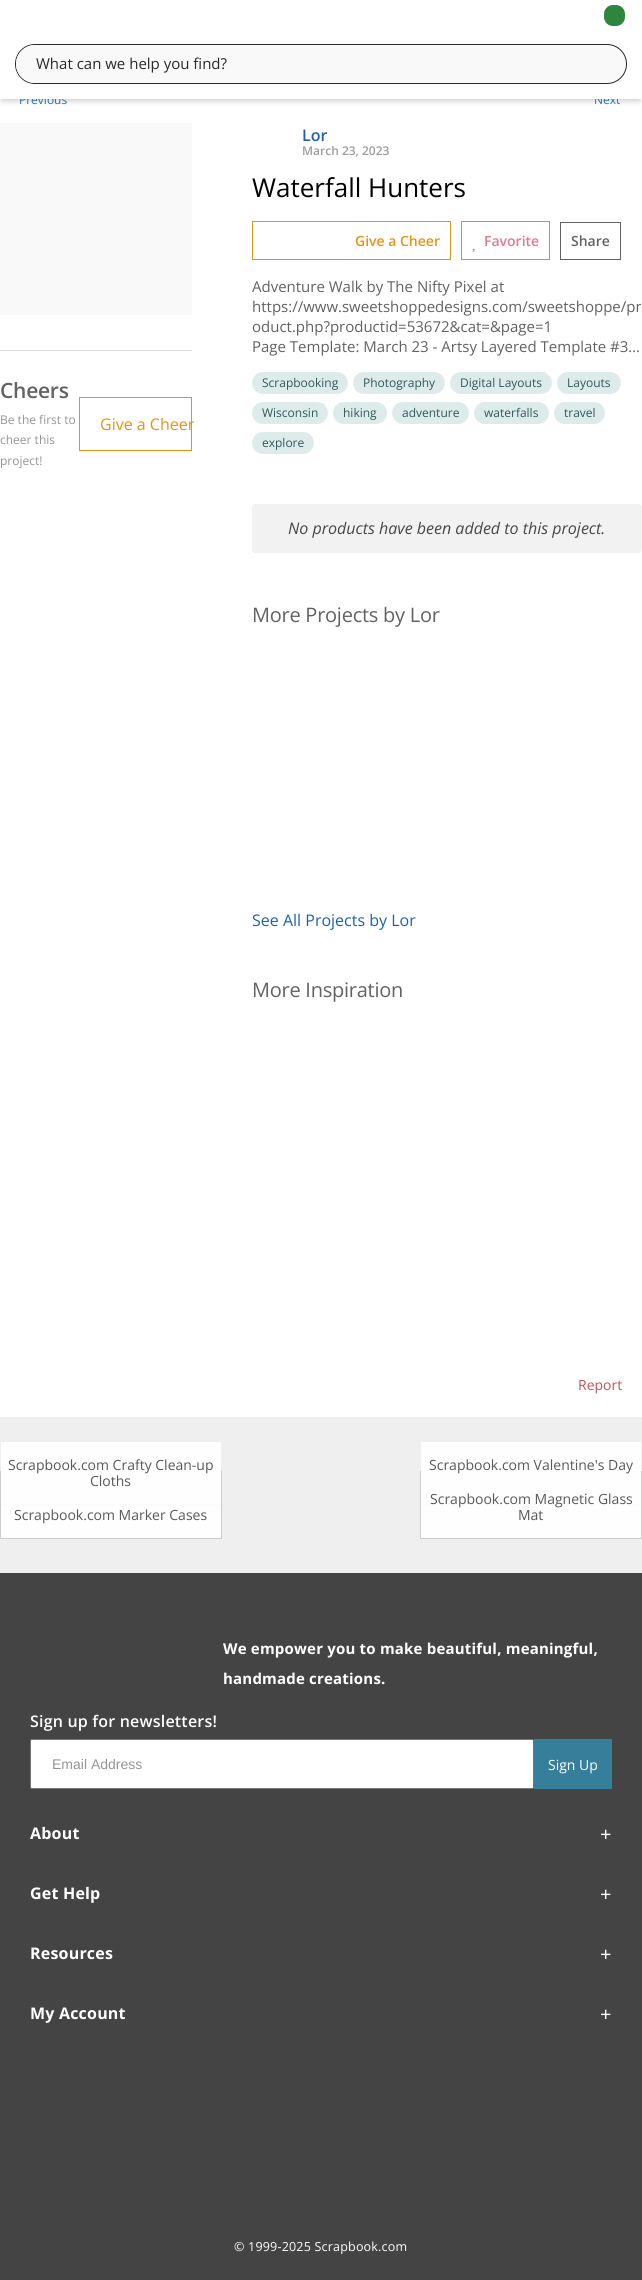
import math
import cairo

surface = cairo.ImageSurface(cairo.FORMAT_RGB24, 642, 2280)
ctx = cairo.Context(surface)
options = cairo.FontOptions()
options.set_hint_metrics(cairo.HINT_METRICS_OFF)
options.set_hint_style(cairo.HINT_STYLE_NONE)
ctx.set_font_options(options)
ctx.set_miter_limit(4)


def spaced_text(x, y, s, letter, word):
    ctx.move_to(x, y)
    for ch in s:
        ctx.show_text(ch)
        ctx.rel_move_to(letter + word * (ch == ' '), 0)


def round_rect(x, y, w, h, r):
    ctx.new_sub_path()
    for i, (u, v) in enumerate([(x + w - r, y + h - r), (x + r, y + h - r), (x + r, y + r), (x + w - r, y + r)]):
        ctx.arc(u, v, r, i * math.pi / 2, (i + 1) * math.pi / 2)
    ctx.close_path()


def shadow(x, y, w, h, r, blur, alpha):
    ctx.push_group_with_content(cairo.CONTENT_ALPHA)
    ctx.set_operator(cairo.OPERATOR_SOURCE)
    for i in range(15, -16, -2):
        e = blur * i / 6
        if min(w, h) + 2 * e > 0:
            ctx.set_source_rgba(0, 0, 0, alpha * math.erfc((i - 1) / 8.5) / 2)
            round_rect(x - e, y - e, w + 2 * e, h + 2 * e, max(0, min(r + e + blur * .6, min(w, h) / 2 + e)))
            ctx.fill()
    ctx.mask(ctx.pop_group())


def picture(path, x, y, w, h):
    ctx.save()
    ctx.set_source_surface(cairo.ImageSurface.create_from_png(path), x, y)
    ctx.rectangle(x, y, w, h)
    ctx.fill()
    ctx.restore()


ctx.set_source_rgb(1, 1, 1)
ctx.paint()
ctx.set_source_rgb(0.18, 0.522, 0.247)
round_rect(603, 4, 23, 23, 10)
ctx.fill_preserve()
ctx.set_source_rgb(1, 1, 1)
ctx.stroke()
ctx.set_source_rgb(0.976, 0.976, 0.976)
round_rect(15.5, 44.5, 611, 39, 19.5)
ctx.fill_preserve()
ctx.set_source_rgb(0.161, 0.161, 0.161)
ctx.set_line_width(1)
ctx.stroke()
ctx.set_source_rgb(0.976, 0.976, 0.976)
ctx.new_path()
ctx.move_to(35, 45)
ctx.line_to(588, 45)
ctx.line_to(588, 83)
ctx.line_to(35, 83)
ctx.curve_to(24.5, 83, 16, 74.5, 16, 64)
ctx.curve_to(16, 53.5, 24.5, 45, 35, 45)
ctx.close_path()
ctx.fill()
ctx.select_font_face("Open Sans")
ctx.set_font_size(15)
ctx.set_source_rgb(0.161, 0.161, 0.161)
ctx.move_to(36, 69)
ctx.show_text("What can we help you find?")
ctx.set_source_rgb(0, 0, 0)
shadow(2, 95, 638, 6, 0, 3, 0.2)
ctx.set_font_size(12)
ctx.set_source_rgb(0.161, 0.459, 0.608)
ctx.move_to(19, 104)
ctx.show_text("Previous")
ctx.move_to(594, 104)
ctx.show_text("Next")
ctx.set_source_rgb(1, 1, 1)
ctx.rectangle(0, 90, 642, 9)
ctx.fill()
ctx.set_source_rgb(0.976, 0.973, 0.98)
ctx.rectangle(0, 123, 192, 192)
ctx.fill()
ctx.set_source_rgb(0.847, 0.847, 0.847)
ctx.rectangle(0, 350, 192, 1)
ctx.fill()
ctx.select_font_face("Open Sans SemiBold")
ctx.set_font_size(21)
ctx.set_source_rgb(0.384, 0.384, 0.384)
spaced_text(0, 398, "Cheers", -0.25, 0)
ctx.select_font_face("Open Sans")
ctx.set_font_size(12)
ctx.set_source_rgb(0.584, 0.584, 0.584)
ctx.move_to(0, 424)
ctx.show_text("Be the first to")
ctx.move_to(0, 444)
ctx.show_text("cheer this")
ctx.move_to(0, 465)
ctx.show_text("project!")
ctx.rectangle(79.5, 397.5, 112, 53)
ctx.set_source_rgb(0.925, 0.565, 0.063)
ctx.stroke()
ctx.set_font_size(16)
ctx.move_to(100, 430)
ctx.show_text("Give a Cheer")
ctx.select_font_face("Open Sans SemiBold")
ctx.set_source_rgb(0.118, 0.376, 0.671)
ctx.move_to(302, 141)
ctx.show_text("Lor")
ctx.set_font_size(12)
ctx.set_source_rgb(0.612, 0.612, 0.612)
ctx.move_to(302, 155)
ctx.show_text("March 23, 2023")
ctx.select_font_face("Open Sans")
ctx.set_font_size(26)
ctx.set_source_rgb(0, 0, 0)
ctx.move_to(252, 197)
ctx.show_text("Waterfall Hunters")
ctx.rectangle(252.5, 221.5, 198, 38)
ctx.set_source_rgb(0.925, 0.565, 0.063)
ctx.stroke()
ctx.select_font_face("Open Sans SemiBold")
ctx.set_font_size(14)
ctx.move_to(355, 246)
ctx.show_text("Give a Cheer")
ctx.rectangle(461.5, 221.5, 88, 38)
ctx.set_source_rgb(0.882, 0.471, 0.549)
ctx.stroke()
ctx.move_to(484, 246)
ctx.show_text("Favorite")
picture("img1.png", 472, 248, 3, 5)
ctx.rectangle(560.5, 222.5, 60, 37)
ctx.set_source_rgb(0.384, 0.384, 0.384)
ctx.stroke()
ctx.move_to(571, 246)
ctx.show_text("Share")
ctx.select_font_face("Open Sans")
ctx.set_font_size(15)
ctx.move_to(252, 292)
ctx.show_text("Adventure Walk by The Nifty Pixel at")
ctx.move_to(252, 312)
ctx.show_text("https://www.sweetshoppedesigns.com/sweetshoppe/pr")
ctx.move_to(252, 332)
ctx.show_text("oduct.php?productid=53672&cat=&page=1")
ctx.move_to(252, 352)
ctx.show_text("Page Template: March 23 - Artsy Layered Template #3…")
ctx.set_source_rgb(0.867, 0.922, 0.918)
round_rect(252, 372, 96, 22, 11)
ctx.fill()
ctx.set_font_size(12)
ctx.set_source_rgb(0.192, 0.345, 0.341)
ctx.move_to(262, 387)
ctx.show_text("Scrapbooking")
ctx.set_source_rgb(0.867, 0.922, 0.918)
round_rect(353, 372, 92, 22, 11)
ctx.fill()
ctx.set_source_rgb(0.192, 0.345, 0.341)
ctx.move_to(363, 387)
ctx.show_text("Photography")
ctx.set_source_rgb(0.867, 0.922, 0.918)
round_rect(450, 372, 102, 22, 11)
ctx.fill()
ctx.set_source_rgb(0.192, 0.345, 0.341)
ctx.move_to(460, 387)
ctx.show_text("Digital Layouts")
ctx.set_source_rgb(0.867, 0.922, 0.918)
round_rect(557, 372, 64, 22, 11)
ctx.fill()
ctx.set_source_rgb(0.192, 0.345, 0.341)
ctx.move_to(567, 387)
ctx.show_text("Layouts")
ctx.set_source_rgb(0.867, 0.922, 0.918)
round_rect(252, 402, 76, 22, 11)
ctx.fill()
ctx.set_source_rgb(0.192, 0.345, 0.341)
ctx.move_to(262, 417)
ctx.show_text("Wisconsin")
ctx.set_source_rgb(0.867, 0.922, 0.918)
round_rect(333, 402, 54, 22, 11)
ctx.fill()
ctx.set_source_rgb(0.192, 0.345, 0.341)
ctx.move_to(343, 417)
ctx.show_text("hiking")
ctx.set_source_rgb(0.867, 0.922, 0.918)
round_rect(392, 402, 77, 22, 11)
ctx.fill()
ctx.set_source_rgb(0.192, 0.345, 0.341)
ctx.move_to(402, 417)
ctx.show_text("adventure")
ctx.set_source_rgb(0.867, 0.922, 0.918)
round_rect(474, 402, 75, 22, 11)
ctx.fill()
ctx.set_source_rgb(0.192, 0.345, 0.341)
ctx.move_to(484, 417)
ctx.show_text("waterfalls")
ctx.set_source_rgb(0.867, 0.922, 0.918)
round_rect(554, 402, 51, 22, 11)
ctx.fill()
ctx.set_source_rgb(0.192, 0.345, 0.341)
ctx.move_to(564, 417)
ctx.show_text("travel")
ctx.set_source_rgb(0.867, 0.922, 0.918)
round_rect(252, 432, 62, 22, 11)
ctx.fill()
ctx.set_source_rgb(0.192, 0.345, 0.341)
ctx.move_to(262, 447)
ctx.show_text("explore")
ctx.set_source_rgb(0.949, 0.949, 0.949)
round_rect(252, 504, 390, 49, 3)
ctx.fill()
ctx.select_font_face("Open Sans", cairo.FONT_SLANT_ITALIC)
ctx.set_font_size(16)
ctx.set_source_rgb(0.278, 0.278, 0.278)
ctx.move_to(288, 534)
ctx.show_text("No products have been added to this project.")
ctx.select_font_face("Open Sans")
ctx.set_font_size(20)
ctx.set_source_rgb(0.384, 0.384, 0.384)
spaced_text(252, 622, "More Projects by Lor", -0.25, 0)
ctx.set_font_size(16)
ctx.set_source_rgb(0.118, 0.376, 0.671)
ctx.move_to(252, 926)
ctx.show_text("See All Projects by Lor")
ctx.set_font_size(20)
ctx.set_source_rgb(0.384, 0.384, 0.384)
spaced_text(252, 997, "More Inspiration", -0.25, 0)
ctx.set_font_size(14)
ctx.set_source_rgb(0.765, 0.322, 0.322)
ctx.move_to(578, 1390)
ctx.show_text("Report")
ctx.set_source_rgb(0.267, 0.267, 0.267)
ctx.rectangle(0, 1573, 642, 707)
ctx.fill()
ctx.set_source_rgb(0.937, 0.937, 0.937)
ctx.rectangle(0, 1417, 642, 156)
ctx.fill()
ctx.rectangle(0.5, 1471.5, 221, 33)
ctx.set_source_rgb(0.8, 0.8, 0.8)
ctx.stroke()
ctx.set_source_rgba(1, 1, 1, 0.93)
ctx.rectangle(1, 1442, 220, 62)
ctx.fill()
ctx.set_source_rgb(0.345, 0.345, 0.345)
ctx.move_to(8, 1470)
ctx.show_text("Scrapbook.com Crafty Clean-up")
ctx.move_to(90, 1486)
ctx.show_text("Cloths")
ctx.rectangle(420.5, 1471.5, 221, 33)
ctx.set_source_rgb(0.8, 0.8, 0.8)
ctx.stroke()
ctx.set_source_rgba(1, 1, 1, 0.93)
ctx.rectangle(421, 1442, 220, 62)
ctx.fill()
ctx.set_source_rgb(0.345, 0.345, 0.345)
ctx.move_to(429, 1470)
ctx.show_text("Scrapbook.com Valentine's Day")
ctx.rectangle(0.5, 1505.5, 221, 33)
ctx.set_source_rgb(0.8, 0.8, 0.8)
ctx.stroke()
ctx.set_source_rgba(1, 1, 1, 0.93)
ctx.rectangle(1, 1504, 220, 34)
ctx.fill()
ctx.set_source_rgb(0.345, 0.345, 0.345)
ctx.move_to(14, 1520)
ctx.show_text("Scrapbook.com Marker Cases")
ctx.rectangle(420.5, 1505.5, 221, 33)
ctx.set_source_rgb(0.8, 0.8, 0.8)
ctx.stroke()
ctx.set_source_rgba(1, 1, 1, 0.93)
ctx.rectangle(421, 1504, 220, 34)
ctx.fill()
ctx.set_source_rgb(0.345, 0.345, 0.345)
ctx.move_to(430, 1504)
ctx.show_text("Scrapbook.com Magnetic Glass")
ctx.move_to(518, 1520)
ctx.show_text("Mat")
ctx.select_font_face("Open Sans", cairo.FONT_SLANT_NORMAL, cairo.FONT_WEIGHT_BOLD)
ctx.set_font_size(15)
ctx.set_source_rgb(1, 1, 1)
spaced_text(223, 1654, "We empower you to make beautiful, meaningful,", 0.2, 0)
spaced_text(223, 1684, "handmade creations.", 0.2, 0)
ctx.select_font_face("Open Sans SemiBold")
ctx.set_font_size(16)
spaced_text(30, 1727, "Sign up for newsletters!", 0.2, 0)
round_rect(30.5, 1739.5, 503, 49, 1.5)
ctx.fill_preserve()
ctx.set_source_rgb(0.463, 0.463, 0.463)
ctx.stroke()
ctx.select_font_face("Liberation Sans")
ctx.set_font_size(14)
ctx.set_source_rgb(0.584, 0.584, 0.584)
ctx.move_to(52, 1769)
ctx.show_text("Email Address")
ctx.set_source_rgb(0.212, 0.498, 0.608)
ctx.rectangle(534, 1739, 78, 50)
ctx.fill()
ctx.select_font_face("Open Sans")
ctx.set_source_rgb(1, 1, 1)
ctx.move_to(548, 1770)
ctx.show_text("Sign Up")
ctx.select_font_face("Open Sans", cairo.FONT_SLANT_NORMAL, cairo.FONT_WEIGHT_BOLD)
ctx.set_font_size(16)
spaced_text(30, 1839, "About", 0.2, 0)
ctx.select_font_face("Liberation Serif", cairo.FONT_SLANT_NORMAL, cairo.FONT_WEIGHT_BOLD)
ctx.set_font_size(20)
spaced_text(600, 1841, "+", 0.2, 0)
ctx.select_font_face("Open Sans", cairo.FONT_SLANT_NORMAL, cairo.FONT_WEIGHT_BOLD)
ctx.set_font_size(16)
spaced_text(30, 1899, "Get Help", 0.2, 0)
ctx.select_font_face("Liberation Serif", cairo.FONT_SLANT_NORMAL, cairo.FONT_WEIGHT_BOLD)
ctx.set_font_size(20)
spaced_text(600, 1901, "+", 0.2, 0)
ctx.select_font_face("Open Sans", cairo.FONT_SLANT_NORMAL, cairo.FONT_WEIGHT_BOLD)
ctx.set_font_size(16)
spaced_text(30, 1959, "Resources", 0.2, 0)
ctx.select_font_face("Liberation Serif", cairo.FONT_SLANT_NORMAL, cairo.FONT_WEIGHT_BOLD)
ctx.set_font_size(20)
spaced_text(600, 1961, "+", 0.2, 0)
ctx.select_font_face("Open Sans", cairo.FONT_SLANT_NORMAL, cairo.FONT_WEIGHT_BOLD)
ctx.set_font_size(16)
spaced_text(30, 2019, "My Account", 0.2, 0)
ctx.select_font_face("Liberation Serif", cairo.FONT_SLANT_NORMAL, cairo.FONT_WEIGHT_BOLD)
ctx.set_font_size(20)
spaced_text(600, 2021, "+", 0.2, 0)
ctx.select_font_face("Open Sans")
ctx.set_font_size(12.5)
spaced_text(234, 2251, "© 1999-2025 Scrapbook.com", 0.2, 0)
surface.write_to_png("page.png")
